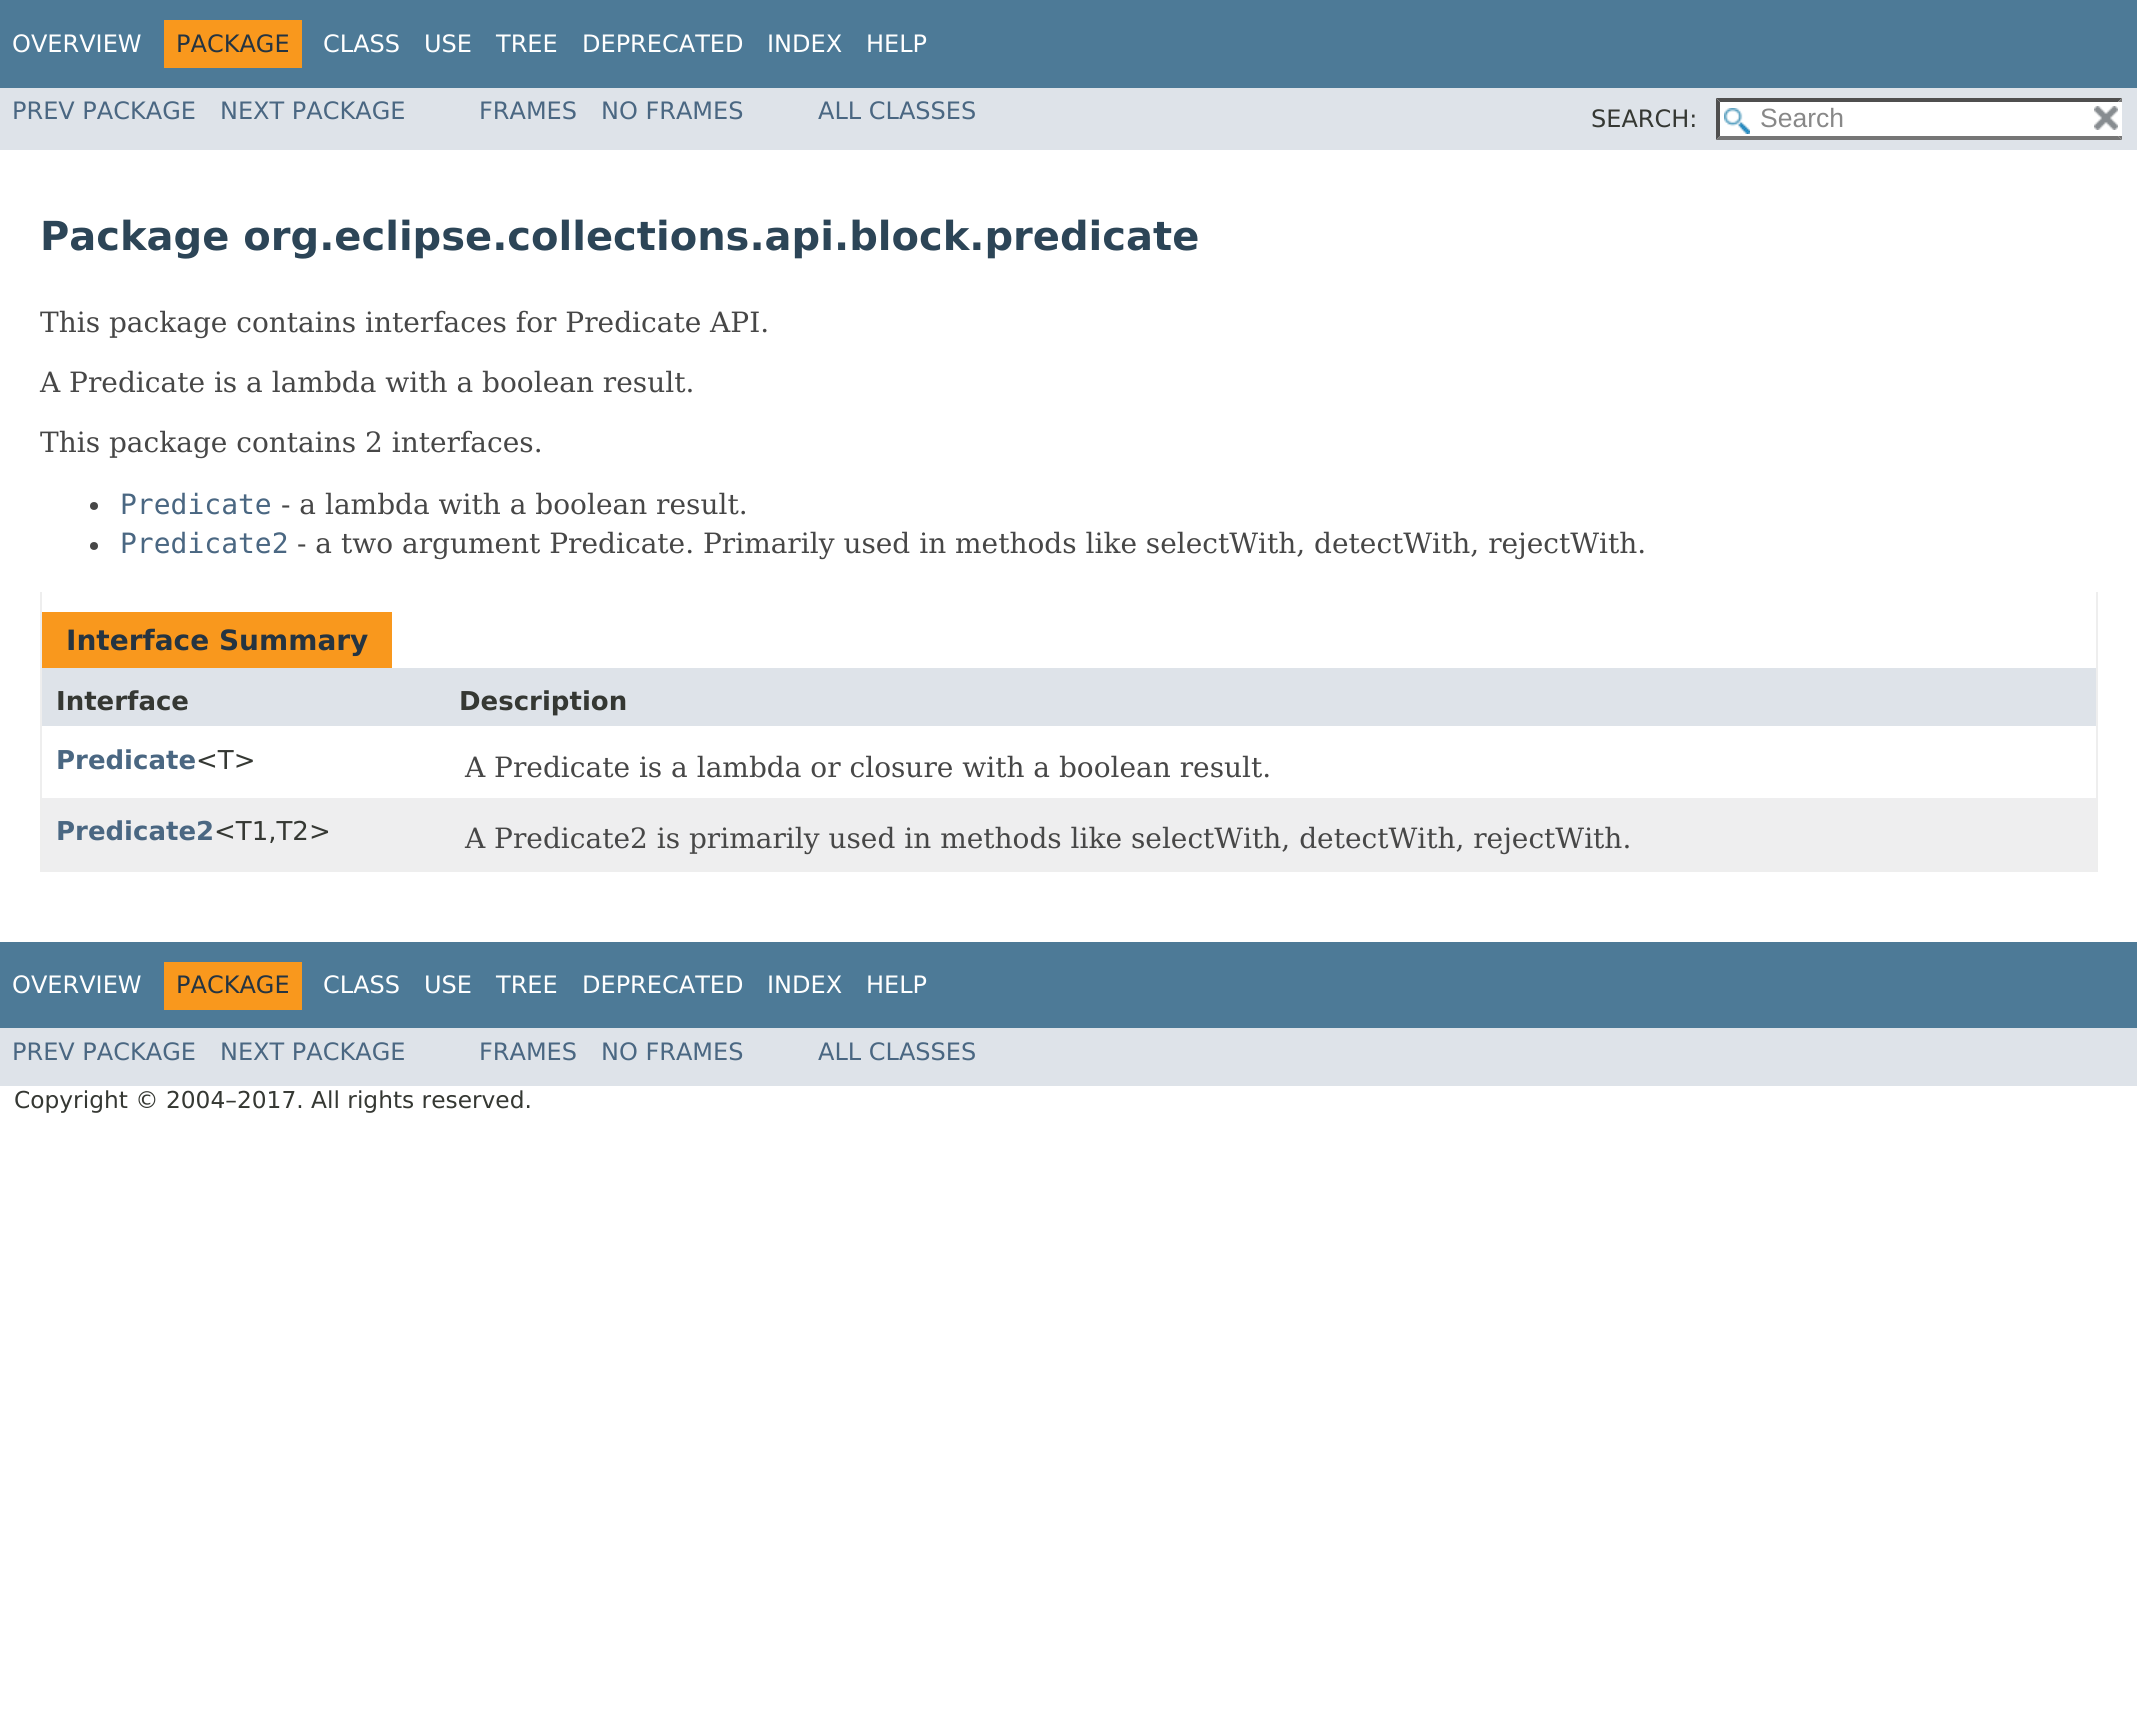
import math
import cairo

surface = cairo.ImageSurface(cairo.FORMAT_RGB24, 2137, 1733)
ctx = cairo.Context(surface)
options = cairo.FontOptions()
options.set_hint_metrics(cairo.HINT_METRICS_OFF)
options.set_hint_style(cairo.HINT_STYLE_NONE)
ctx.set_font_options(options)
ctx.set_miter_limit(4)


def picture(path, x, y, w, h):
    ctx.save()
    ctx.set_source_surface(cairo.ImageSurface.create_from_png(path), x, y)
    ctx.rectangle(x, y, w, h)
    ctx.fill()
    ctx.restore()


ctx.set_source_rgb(1, 1, 1)
ctx.paint()
ctx.set_source_rgb(0.302, 0.478, 0.592)
ctx.rectangle(0, 0, 2137, 88)
ctx.fill()
ctx.select_font_face("DejaVu Sans")
ctx.set_font_size(24)
ctx.set_source_rgb(1, 1, 1)
ctx.move_to(12, 52)
ctx.show_text("OVERVIEW")
ctx.set_source_rgb(0.973, 0.596, 0.114)
ctx.rectangle(164, 20, 138, 48)
ctx.fill()
ctx.set_source_rgb(0.145, 0.204, 0.255)
ctx.move_to(176, 52)
ctx.show_text("PACKAGE")
ctx.set_source_rgb(1, 1, 1)
ctx.move_to(323, 52)
ctx.show_text("CLASS")
ctx.move_to(424, 52)
ctx.show_text("USE")
ctx.move_to(496, 52)
ctx.show_text("TREE")
ctx.move_to(582, 52)
ctx.show_text("DEPRECATED")
ctx.move_to(767, 52)
ctx.show_text("INDEX")
ctx.move_to(866, 52)
ctx.show_text("HELP")
ctx.set_source_rgb(0.871, 0.89, 0.914)
ctx.rectangle(0, 88, 2137, 62)
ctx.fill()
ctx.set_source_rgb(0.29, 0.404, 0.51)
ctx.move_to(12, 119)
ctx.show_text("PREV PACKAGE")
ctx.move_to(220, 119)
ctx.show_text("NEXT PACKAGE")
ctx.move_to(479, 119)
ctx.show_text("FRAMES")
ctx.move_to(601, 119)
ctx.show_text("NO FRAMES")
ctx.move_to(818, 119)
ctx.show_text("ALL CLASSES")
ctx.set_source_rgb(0.208, 0.22, 0.2)
ctx.move_to(1591, 127)
ctx.show_text("SEARCH:")
ctx.set_source_rgb(1, 1, 1)
ctx.rectangle(1716, 98, 406, 42)
ctx.fill()
picture("img1.png", 1724, 108, 26, 26)
ctx.set_source_rgb(0.31, 0.31, 0.31)
ctx.new_path()
ctx.move_to(1716, 98)
ctx.line_to(2122, 98)
ctx.line_to(2118, 102)
ctx.line_to(1720, 102)
ctx.close_path()
ctx.fill()
ctx.set_source_rgb(0.463, 0.463, 0.463)
ctx.new_path()
ctx.move_to(2122, 98)
ctx.line_to(2122, 140)
ctx.line_to(2118, 136)
ctx.line_to(2118, 102)
ctx.close_path()
ctx.fill()
ctx.new_path()
ctx.move_to(2122, 140)
ctx.line_to(1716, 140)
ctx.line_to(1720, 136)
ctx.line_to(2118, 136)
ctx.close_path()
ctx.fill()
ctx.set_source_rgb(0.31, 0.31, 0.31)
ctx.new_path()
ctx.move_to(1716, 140)
ctx.line_to(1716, 98)
ctx.line_to(1720, 102)
ctx.line_to(1720, 136)
ctx.close_path()
ctx.fill()
ctx.select_font_face("Liberation Sans")
ctx.set_font_size(26.5)
ctx.set_source_rgb(0.533, 0.533, 0.533)
ctx.move_to(1760, 127)
ctx.show_text("Search")
ctx.set_source_rgb(1, 1, 1)
ctx.rectangle(2118, 102, 4, 34)
ctx.fill()
picture("img2.png", 2094, 106, 24, 24)
ctx.select_font_face("DejaVu Sans", cairo.FONT_SLANT_NORMAL, cairo.FONT_WEIGHT_BOLD)
ctx.set_font_size(40)
ctx.set_source_rgb(0.173, 0.271, 0.341)
ctx.move_to(40, 250)
ctx.show_text("Package org.eclipse.collections.api.block.predicate")
ctx.select_font_face("DejaVu Serif")
ctx.set_font_size(28)
ctx.set_source_rgb(0.278, 0.278, 0.278)
ctx.move_to(40, 332)
ctx.show_text("This package contains interfaces for Predicate API.")
ctx.move_to(40, 392)
ctx.show_text("A Predicate is a lambda with a boolean result.")
ctx.move_to(40, 452)
ctx.show_text("This package contains 2 interfaces.")
ctx.new_path()
ctx.arc(94, 506, 4, 0, 2 * math.pi)
ctx.fill()
ctx.select_font_face("DejaVu Sans Mono")
ctx.set_source_rgb(0.29, 0.404, 0.51)
ctx.move_to(120, 514)
ctx.show_text("Predicate")
ctx.select_font_face("DejaVu Serif")
ctx.set_source_rgb(0.278, 0.278, 0.278)
ctx.move_to(281, 514)
ctx.show_text("- a lambda with a boolean result.")
ctx.new_path()
ctx.arc(94, 546, 4, 0, 2 * math.pi)
ctx.fill()
ctx.select_font_face("DejaVu Sans Mono")
ctx.set_source_rgb(0.29, 0.404, 0.51)
ctx.move_to(120, 553)
ctx.show_text("Predicate2")
ctx.select_font_face("DejaVu Serif")
ctx.set_source_rgb(0.278, 0.278, 0.278)
ctx.move_to(297, 553)
ctx.show_text("- a two argument Predicate. Primarily used in methods like selectWith, detectWith, rejectWith.")
ctx.set_source_rgb(0.933, 0.933, 0.933)
ctx.rectangle(2096, 592, 2, 280)
ctx.fill()
ctx.rectangle(40, 870, 2058, 2)
ctx.fill()
ctx.rectangle(40, 592, 2, 280)
ctx.fill()
ctx.set_source_rgb(0.973, 0.596, 0.114)
ctx.rectangle(42, 612, 350, 56)
ctx.fill()
ctx.select_font_face("DejaVu Sans", cairo.FONT_SLANT_NORMAL, cairo.FONT_WEIGHT_BOLD)
ctx.set_source_rgb(0.145, 0.204, 0.255)
ctx.move_to(66, 650)
ctx.show_text("Interface Summary")
ctx.set_source_rgb(0.871, 0.89, 0.914)
ctx.rectangle(42, 668, 2054, 58)
ctx.fill()
ctx.set_font_size(26)
ctx.set_source_rgb(0.208, 0.22, 0.2)
ctx.move_to(56, 710)
ctx.show_text("Interface")
ctx.move_to(459, 710)
ctx.show_text("Description")
ctx.set_source_rgb(0.29, 0.404, 0.51)
ctx.move_to(56, 769)
ctx.show_text("Predicate")
ctx.select_font_face("DejaVu Sans")
ctx.set_source_rgb(0.208, 0.22, 0.2)
ctx.move_to(196, 769)
ctx.show_text("<T>")
ctx.select_font_face("DejaVu Serif")
ctx.set_font_size(28)
ctx.set_source_rgb(0.278, 0.278, 0.278)
ctx.move_to(465, 777)
ctx.show_text("A Predicate is a lambda or closure with a boolean result.")
ctx.set_source_rgb(0.933, 0.933, 0.937)
ctx.rectangle(42, 798, 2054, 72)
ctx.fill()
ctx.select_font_face("DejaVu Sans", cairo.FONT_SLANT_NORMAL, cairo.FONT_WEIGHT_BOLD)
ctx.set_font_size(26)
ctx.set_source_rgb(0.29, 0.404, 0.51)
ctx.move_to(56, 840)
ctx.show_text("Predicate2")
ctx.select_font_face("DejaVu Sans")
ctx.set_source_rgb(0.208, 0.22, 0.2)
ctx.move_to(214, 840)
ctx.show_text("<T1,T2>")
ctx.select_font_face("DejaVu Serif")
ctx.set_font_size(28)
ctx.set_source_rgb(0.278, 0.278, 0.278)
ctx.move_to(465, 848)
ctx.show_text("A Predicate2 is primarily used in methods like selectWith, detectWith, rejectWith.")
ctx.set_source_rgb(0.302, 0.478, 0.592)
ctx.rectangle(0, 942, 2137, 86)
ctx.fill()
ctx.select_font_face("DejaVu Sans")
ctx.set_font_size(24)
ctx.set_source_rgb(1, 1, 1)
ctx.move_to(12, 993)
ctx.show_text("OVERVIEW")
ctx.set_source_rgb(0.973, 0.596, 0.114)
ctx.rectangle(164, 962, 138, 48)
ctx.fill()
ctx.set_source_rgb(0.145, 0.204, 0.255)
ctx.move_to(176, 993)
ctx.show_text("PACKAGE")
ctx.set_source_rgb(1, 1, 1)
ctx.move_to(323, 993)
ctx.show_text("CLASS")
ctx.move_to(424, 993)
ctx.show_text("USE")
ctx.move_to(496, 993)
ctx.show_text("TREE")
ctx.move_to(582, 993)
ctx.show_text("DEPRECATED")
ctx.move_to(767, 993)
ctx.show_text("INDEX")
ctx.move_to(866, 993)
ctx.show_text("HELP")
ctx.set_source_rgb(0.871, 0.89, 0.914)
ctx.rectangle(0, 1028, 2137, 58)
ctx.fill()
ctx.set_source_rgb(0.29, 0.404, 0.51)
ctx.move_to(12, 1060)
ctx.show_text("PREV PACKAGE")
ctx.move_to(220, 1060)
ctx.show_text("NEXT PACKAGE")
ctx.move_to(479, 1060)
ctx.show_text("FRAMES")
ctx.move_to(601, 1060)
ctx.show_text("NO FRAMES")
ctx.move_to(818, 1060)
ctx.show_text("ALL CLASSES")
ctx.set_font_size(23.3)
ctx.set_source_rgb(0.208, 0.22, 0.2)
ctx.move_to(14, 1108)
ctx.show_text("Copyright © 2004–2017. All rights reserved.")
surface.write_to_png("page.png")
